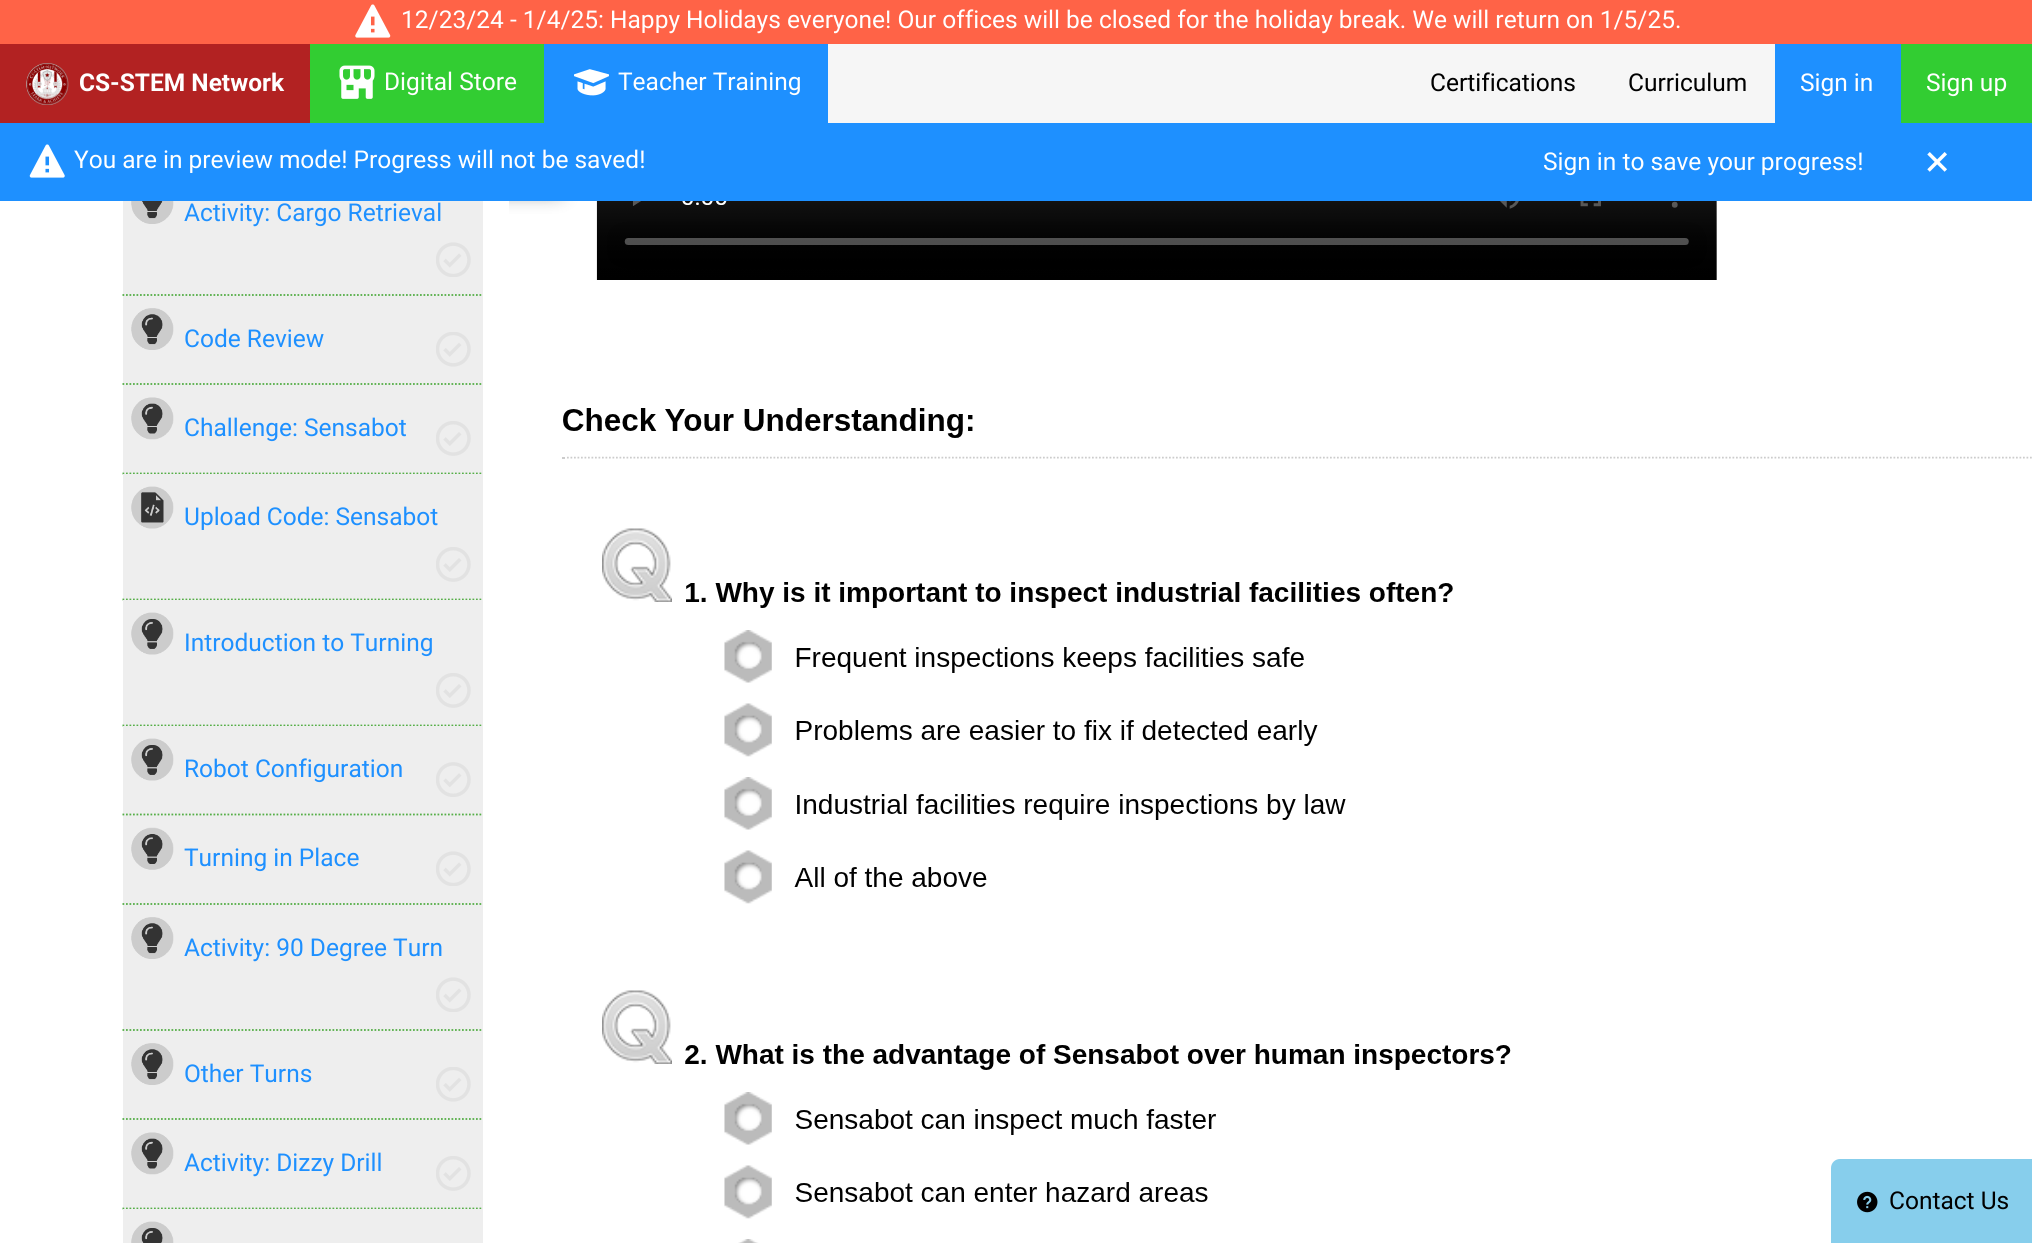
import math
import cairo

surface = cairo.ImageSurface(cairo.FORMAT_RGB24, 2032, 1243)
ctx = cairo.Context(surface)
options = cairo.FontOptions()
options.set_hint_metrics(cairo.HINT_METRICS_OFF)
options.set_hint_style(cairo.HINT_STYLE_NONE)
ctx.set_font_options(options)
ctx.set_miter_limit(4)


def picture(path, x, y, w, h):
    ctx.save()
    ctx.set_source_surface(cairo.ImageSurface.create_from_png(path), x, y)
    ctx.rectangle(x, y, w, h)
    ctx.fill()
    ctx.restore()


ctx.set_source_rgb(1, 1, 1)
ctx.paint()
ctx.set_source_rgb(1, 0.388, 0.278)
ctx.rectangle(0, 0, 2032, 44)
ctx.fill()
picture("img1.png", 355, 4, 36, 34)
ctx.select_font_face("Roboto")
ctx.set_font_size(24.5)
ctx.set_source_rgb(1, 1, 1)
ctx.move_to(401, 28)
ctx.show_text("12/23/24 - 1/4/25: Happy Holidays everyone! Our offices will be closed for the holiday break. We will return on 1/5/25.")
ctx.set_source_rgb(0.961, 0.961, 0.961)
ctx.rectangle(828, 44, 947, 79)
ctx.fill()
ctx.set_source_rgb(0.698, 0.133, 0.133)
ctx.rectangle(0, 44, 310, 79)
ctx.fill()
picture("img2.png", 26, 63, 43, 42)
ctx.select_font_face("Roboto", cairo.FONT_SLANT_NORMAL, cairo.FONT_WEIGHT_BOLD)
ctx.set_source_rgb(1, 1, 1)
ctx.move_to(79, 91)
ctx.show_text("CS-STEM Network")
ctx.set_source_rgb(0.196, 0.804, 0.196)
ctx.rectangle(310, 44, 234, 79)
ctx.fill()
picture("img3.png", 339, 65, 36, 34)
ctx.select_font_face("Roboto")
ctx.set_source_rgb(1, 1, 1)
ctx.move_to(384, 90)
ctx.show_text("Digital Store")
ctx.set_source_rgb(0.118, 0.565, 1)
ctx.rectangle(544, 44, 284, 79)
ctx.fill()
picture("img4.png", 574, 69, 35, 27)
ctx.set_source_rgb(1, 1, 1)
ctx.move_to(618, 90)
ctx.show_text("Teacher Training")
ctx.set_source_rgb(0, 0, 0)
ctx.move_to(1430, 91)
ctx.show_text("Certifications")
ctx.move_to(1628, 91)
ctx.show_text("Curriculum")
ctx.set_source_rgb(0.118, 0.565, 1)
ctx.rectangle(1775, 44, 126, 79)
ctx.fill()
ctx.set_source_rgb(1, 1, 1)
ctx.move_to(1800, 91)
ctx.show_text("Sign in")
ctx.set_source_rgb(0.196, 0.804, 0.196)
ctx.rectangle(1901, 44, 131, 79)
ctx.fill()
ctx.set_source_rgb(1, 1, 1)
ctx.move_to(1926, 91)
ctx.show_text("Sign up")
ctx.set_source_rgb(0.118, 0.565, 1)
ctx.rectangle(0, 123, 2032, 78)
ctx.fill()
picture("img5.png", 29, 144, 36, 34)
ctx.set_source_rgb(1, 1, 1)
ctx.move_to(74, 168)
ctx.show_text("You are in preview mode! Progress will not be saved!")
ctx.move_to(1543, 170)
ctx.show_text("Sign in to save your progress!")
picture("img6.png", 1927, 152, 20, 20)
ctx.set_source_rgb(0.933, 0.933, 0.933)
ctx.rectangle(123, 201, 360, 273)
ctx.fill()
ctx.new_path()
ctx.move_to(122.5, 295)
ctx.line_to(483, 295)
ctx.set_source_rgb(0.333, 0.682, 0.278)
ctx.set_line_width(1.8)
ctx.set_dash([1.75, 1.75])
ctx.stroke()
picture("img7.png", 131, 201, 43, 23)
ctx.set_source_rgb(0.118, 0.565, 1)
ctx.move_to(184, 221)
ctx.show_text("Activity: Cargo Retrieval")
picture("img8.png", 436, 242, 35, 35)
ctx.new_path()
ctx.move_to(122.5, 384)
ctx.line_to(483, 384)
ctx.set_source_rgb(0.333, 0.682, 0.278)
ctx.stroke()
picture("img9.png", 131, 308, 43, 42)
ctx.set_source_rgb(0.118, 0.565, 1)
ctx.move_to(184, 347)
ctx.show_text("Code Review")
picture("img10.png", 436, 332, 35, 35)
ctx.new_path()
ctx.move_to(122.5, 473.5)
ctx.line_to(483, 473.5)
ctx.set_source_rgb(0.333, 0.682, 0.278)
ctx.stroke()
picture("img11.png", 131, 397, 43, 43)
ctx.set_source_rgb(0.118, 0.565, 1)
ctx.move_to(184, 436)
ctx.show_text("Challenge: Sensabot")
picture("img12.png", 436, 421, 35, 35)
ctx.set_source_rgb(0.933, 0.933, 0.933)
ctx.rectangle(123, 474, 360, 126)
ctx.fill()
ctx.new_path()
ctx.move_to(122.5, 599.5)
ctx.line_to(483, 599.5)
ctx.set_source_rgb(0.333, 0.682, 0.278)
ctx.stroke()
picture("img13.png", 131, 486, 43, 43)
ctx.set_source_rgb(0.118, 0.565, 1)
ctx.move_to(184, 525)
ctx.show_text("Upload Code: Sensabot")
picture("img12.png", 436, 547, 35, 35)
ctx.set_source_rgb(0.933, 0.933, 0.933)
ctx.rectangle(123, 600, 360, 126)
ctx.fill()
ctx.new_path()
ctx.move_to(122.5, 725.5)
ctx.line_to(483, 725.5)
ctx.set_source_rgb(0.333, 0.682, 0.278)
ctx.stroke()
picture("img14.png", 131, 612, 43, 43)
ctx.set_source_rgb(0.118, 0.565, 1)
ctx.move_to(184, 651)
ctx.show_text("Introduction to Turning")
picture("img12.png", 436, 673, 35, 35)
ctx.set_source_rgb(0.933, 0.933, 0.933)
ctx.rectangle(123, 726, 360, 483)
ctx.fill()
ctx.new_path()
ctx.move_to(122.5, 814.5)
ctx.line_to(483, 814.5)
ctx.set_source_rgb(0.333, 0.682, 0.278)
ctx.stroke()
picture("img14.png", 131, 738, 43, 43)
ctx.set_source_rgb(0.118, 0.565, 1)
ctx.move_to(184, 777)
ctx.show_text("Robot Configuration")
picture("img15.png", 436, 762, 35, 35)
ctx.new_path()
ctx.move_to(122.5, 904)
ctx.line_to(483, 904)
ctx.set_source_rgb(0.333, 0.682, 0.278)
ctx.stroke()
picture("img16.png", 131, 827, 43, 43)
ctx.set_source_rgb(0.118, 0.565, 1)
ctx.move_to(184, 866)
ctx.show_text("Turning in Place")
picture("img8.png", 436, 851, 35, 35)
ctx.new_path()
ctx.move_to(122.5, 1030)
ctx.line_to(483, 1030)
ctx.set_source_rgb(0.333, 0.682, 0.278)
ctx.stroke()
picture("img9.png", 131, 917, 43, 42)
ctx.set_source_rgb(0.118, 0.565, 1)
ctx.move_to(184, 956)
ctx.show_text("Activity: 90 Degree Turn")
picture("img8.png", 436, 977, 35, 35)
ctx.new_path()
ctx.move_to(122.5, 1119)
ctx.line_to(483, 1119)
ctx.set_source_rgb(0.333, 0.682, 0.278)
ctx.stroke()
picture("img9.png", 131, 1043, 43, 42)
ctx.set_source_rgb(0.118, 0.565, 1)
ctx.move_to(184, 1082)
ctx.show_text("Other Turns")
picture("img10.png", 436, 1067, 35, 35)
ctx.new_path()
ctx.move_to(122.5, 1208.5)
ctx.line_to(483, 1208.5)
ctx.set_source_rgb(0.333, 0.682, 0.278)
ctx.stroke()
picture("img17.png", 131, 1132, 43, 43)
ctx.set_source_rgb(0.118, 0.565, 1)
ctx.move_to(184, 1171)
ctx.show_text("Activity: Dizzy Drill")
picture("img12.png", 436, 1156, 35, 35)
ctx.set_source_rgb(0.933, 0.933, 0.933)
ctx.rectangle(123, 1209, 360, 34)
ctx.fill()
picture("img18.png", 131, 1221, 43, 22)
picture("img19.png", 509, 201, 1523, 1042)
ctx.set_source_rgb(0.529, 0.808, 0.922)
ctx.new_path()
ctx.move_to(1840, 1159)
ctx.line_to(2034, 1159)
ctx.line_to(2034, 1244)
ctx.line_to(1831, 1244)
ctx.line_to(1831, 1168)
ctx.curve_to(1831, 1163, 1835, 1159, 1840, 1159)
ctx.close_path()
ctx.fill()
picture("img20.png", 1857, 1191, 21, 22)
ctx.set_source_rgb(0, 0, 0)
ctx.move_to(1889, 1209)
ctx.show_text("Contact Us")
surface.write_to_png("page.png")
